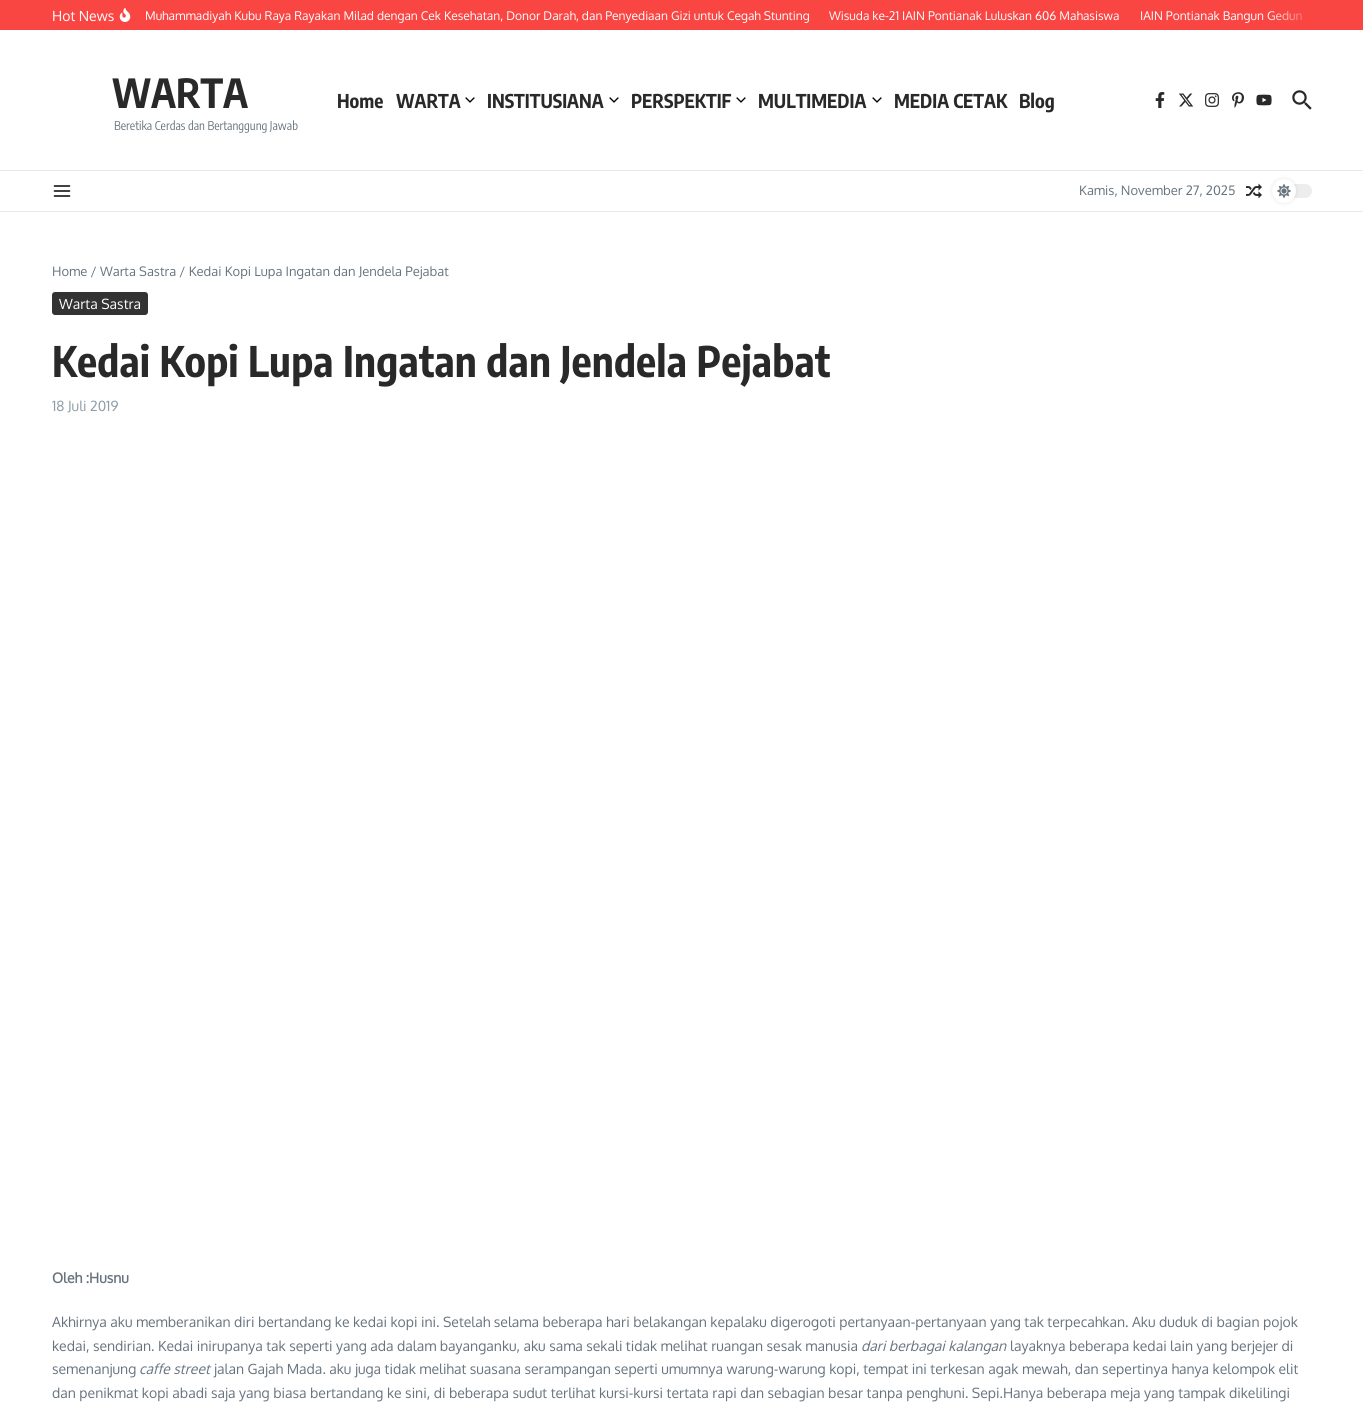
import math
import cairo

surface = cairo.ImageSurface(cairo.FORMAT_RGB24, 1363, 1407)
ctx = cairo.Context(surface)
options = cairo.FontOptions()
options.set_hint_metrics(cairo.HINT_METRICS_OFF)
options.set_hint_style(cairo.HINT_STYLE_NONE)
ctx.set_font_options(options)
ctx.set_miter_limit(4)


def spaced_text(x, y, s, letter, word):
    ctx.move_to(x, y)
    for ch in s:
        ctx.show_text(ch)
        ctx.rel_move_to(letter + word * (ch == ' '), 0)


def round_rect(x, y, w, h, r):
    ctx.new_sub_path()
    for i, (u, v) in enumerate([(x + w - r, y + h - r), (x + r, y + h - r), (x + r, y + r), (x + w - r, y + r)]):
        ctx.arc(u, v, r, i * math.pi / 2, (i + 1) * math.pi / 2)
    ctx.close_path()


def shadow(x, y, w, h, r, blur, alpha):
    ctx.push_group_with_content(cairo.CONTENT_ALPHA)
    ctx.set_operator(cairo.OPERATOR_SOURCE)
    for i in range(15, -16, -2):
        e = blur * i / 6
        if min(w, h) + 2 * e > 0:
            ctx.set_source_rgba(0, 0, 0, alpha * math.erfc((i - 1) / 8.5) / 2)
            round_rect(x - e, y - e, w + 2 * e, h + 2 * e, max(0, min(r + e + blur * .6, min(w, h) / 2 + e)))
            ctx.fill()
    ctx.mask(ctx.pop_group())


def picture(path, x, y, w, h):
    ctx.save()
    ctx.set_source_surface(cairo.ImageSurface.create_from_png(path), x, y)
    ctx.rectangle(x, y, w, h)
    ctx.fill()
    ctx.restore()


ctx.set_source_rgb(1, 1, 1)
ctx.paint()
ctx.set_source_rgb(0.973, 0.275, 0.263)
ctx.rectangle(0, 0, 1363, 30)
ctx.fill()
ctx.select_font_face("Oxygen")
ctx.set_font_size(14)
ctx.set_source_rgb(1, 1, 1)
ctx.move_to(52, 21)
ctx.show_text("Hot News")
picture("img1.png", 119, 8, 12, 14)
ctx.set_font_size(12)
ctx.move_to(145, 20)
ctx.show_text("Muhammadiyah Kubu Raya Rayakan Milad dengan Cek Kesehatan, Donor Darah, dan Penyediaan Gizi untuk Cegah Stunting")
ctx.move_to(829, 20)
ctx.show_text("Wisuda ke-21 IAIN Pontianak Luluskan 606 Mahasiswa")
ctx.move_to(1140, 20)
ctx.show_text("IAIN Pontianak Bangun Gedun")
gradient = cairo.LinearGradient(1267, 16, 1317, 15)
gradient.add_color_stop_rgba(0, 0.973, 0.275, 0.263, 0)
gradient.add_color_stop_rgba(1, 0.973, 0.275, 0.263, 1)
ctx.set_source(gradient)
ctx.rectangle(1268, 11, 34, 10)
ctx.fill()
ctx.set_source_rgb(0.91, 0.91, 0.91)
ctx.rectangle(0, 170, 1363, 1)
ctx.fill()
ctx.select_font_face("Encode Sans Condensed", cairo.FONT_SLANT_NORMAL, cairo.FONT_WEIGHT_BOLD)
ctx.set_font_size(40)
ctx.set_source_rgb(0.161, 0.161, 0.161)
ctx.move_to(112, 108)
ctx.show_text("WARTA")
ctx.select_font_face("Encode Sans Condensed")
ctx.set_font_size(12)
ctx.set_source_rgb(0.404, 0.451, 0.494)
ctx.move_to(114, 130)
ctx.show_text("Beretika Cerdas dan Bertanggung Jawab")
ctx.select_font_face("Encode Sans Condensed", cairo.FONT_SLANT_NORMAL, cairo.FONT_WEIGHT_BOLD)
ctx.set_font_size(19)
ctx.set_source_rgb(0.161, 0.161, 0.161)
ctx.move_to(337, 108)
ctx.show_text("Home")
ctx.move_to(396, 108)
ctx.show_text("WARTA")
picture("img2.png", 465, 97, 10, 6)
ctx.move_to(487, 108)
ctx.show_text("INSTITUSIANA")
picture("img2.png", 609, 97, 10, 6)
ctx.move_to(631, 108)
ctx.show_text("PERSPEKTIF")
picture("img2.png", 736, 97, 10, 6)
ctx.move_to(758, 108)
ctx.show_text("MULTIMEDIA")
picture("img2.png", 872, 97, 10, 6)
ctx.move_to(894, 108)
ctx.show_text("MEDIA CETAK")
ctx.move_to(1019, 108)
ctx.show_text("Blog")
picture("img3.png", 1155, 92, 10, 16)
picture("img4.png", 1179, 93, 15, 14)
picture("img5.png", 1205, 93, 14, 14)
picture("img6.png", 1232, 92, 12, 16)
picture("img7.png", 1256, 94, 16, 12)
picture("img8.png", 1292, 90, 20, 20)
ctx.set_source_rgb(0.91, 0.91, 0.91)
ctx.rectangle(0, 211, 1363, 1)
ctx.fill()
picture("img9.png", 53, 185, 18, 12)
ctx.select_font_face("Oxygen")
ctx.set_font_size(13)
ctx.set_source_rgb(0.404, 0.451, 0.494)
ctx.move_to(1079, 195)
ctx.show_text("Kamis, November 27, 2025")
picture("img10.png", 1246, 183, 16, 16)
ctx.set_source_rgb(0.929, 0.929, 0.929)
round_rect(1272, 184, 40, 14, 7)
ctx.fill()
ctx.set_source_rgb(0, 0, 0)
shadow(1272, 179, 24, 24, 12, 2, 0.1)
ctx.set_source_rgb(1, 1, 1)
ctx.arc(1284, 191, 12, 0, 2 * math.pi)
ctx.fill()
picture("img11.png", 1277, 184, 14, 14)
ctx.set_source_rgb(0.404, 0.451, 0.494)
ctx.move_to(52, 276)
ctx.show_text("Home / Warta Sastra / Kedai Kopi Lupa Ingatan dan Jendela Pejabat")
ctx.set_source_rgb(0.2, 0.2, 0.2)
round_rect(52, 292, 96, 23, 3)
ctx.fill()
ctx.set_font_size(14)
ctx.set_source_rgb(1, 1, 1)
ctx.move_to(59, 309)
ctx.show_text("Warta Sastra")
ctx.select_font_face("Encode Sans Condensed", cairo.FONT_SLANT_NORMAL, cairo.FONT_WEIGHT_BOLD)
ctx.set_font_size(42)
ctx.set_source_rgb(0.161, 0.161, 0.161)
spaced_text(52, 377, "Kedai Kopi Lupa Ingatan dan Jendela Pejabat", 0.2, 0)
ctx.select_font_face("Oxygen")
ctx.set_font_size(14)
ctx.set_source_rgb(0.557, 0.608, 0.655)
ctx.move_to(52, 411)
ctx.show_text("18 Juli 2019")
ctx.select_font_face("Oxygen", cairo.FONT_SLANT_NORMAL, cairo.FONT_WEIGHT_BOLD)
ctx.set_source_rgb(0.404, 0.451, 0.494)
ctx.move_to(52, 1283)
ctx.show_text("Oleh :Husnu")
ctx.select_font_face("Oxygen")
ctx.move_to(52, 1327)
ctx.show_text("Akhirnya aku memberanikan diri bertandang ke kedai kopi ini. Setelah selama beberapa hari belakangan kepalaku digerogoti pertanyaan-pertanyaan yang tak terpecahkan. Aku duduk di bagian pojok")
ctx.move_to(52, 1351)
ctx.show_text("kedai, sendirian. Kedai inirupanya tak seperti yang ada dalam bayanganku, aku sama sekali tidak melihat ruangan sesak manusia")
ctx.select_font_face("Oxygen", cairo.FONT_SLANT_ITALIC)
ctx.move_to(861, 1351)
ctx.show_text("dari berbagai kalangan")
ctx.select_font_face("Oxygen")
ctx.move_to(1010, 1351)
ctx.show_text("layaknya beberapa kedai lain yang berjejer di")
ctx.move_to(52, 1374)
ctx.show_text("semenanjung")
ctx.select_font_face("Oxygen", cairo.FONT_SLANT_ITALIC)
ctx.move_to(139, 1374)
ctx.show_text("caffe street")
ctx.select_font_face("Oxygen")
ctx.move_to(214, 1374)
ctx.show_text("jalan Gajah Mada. aku juga tidak melihat suasana serampangan seperti umumnya warung-warung kopi, tempat ini terkesan agak mewah, dan sepertinya hanya kelompok elit")
ctx.move_to(52, 1398)
ctx.show_text("dan penikmat kopi abadi saja yang biasa bertandang ke sini, di beberapa sudut terlihat kursi-kursi tertata rapi dan sebagian besar tanpa penghuni. Sepi.Hanya beberapa meja yang tampak dikelilingi")
surface.write_to_png("page.png")
